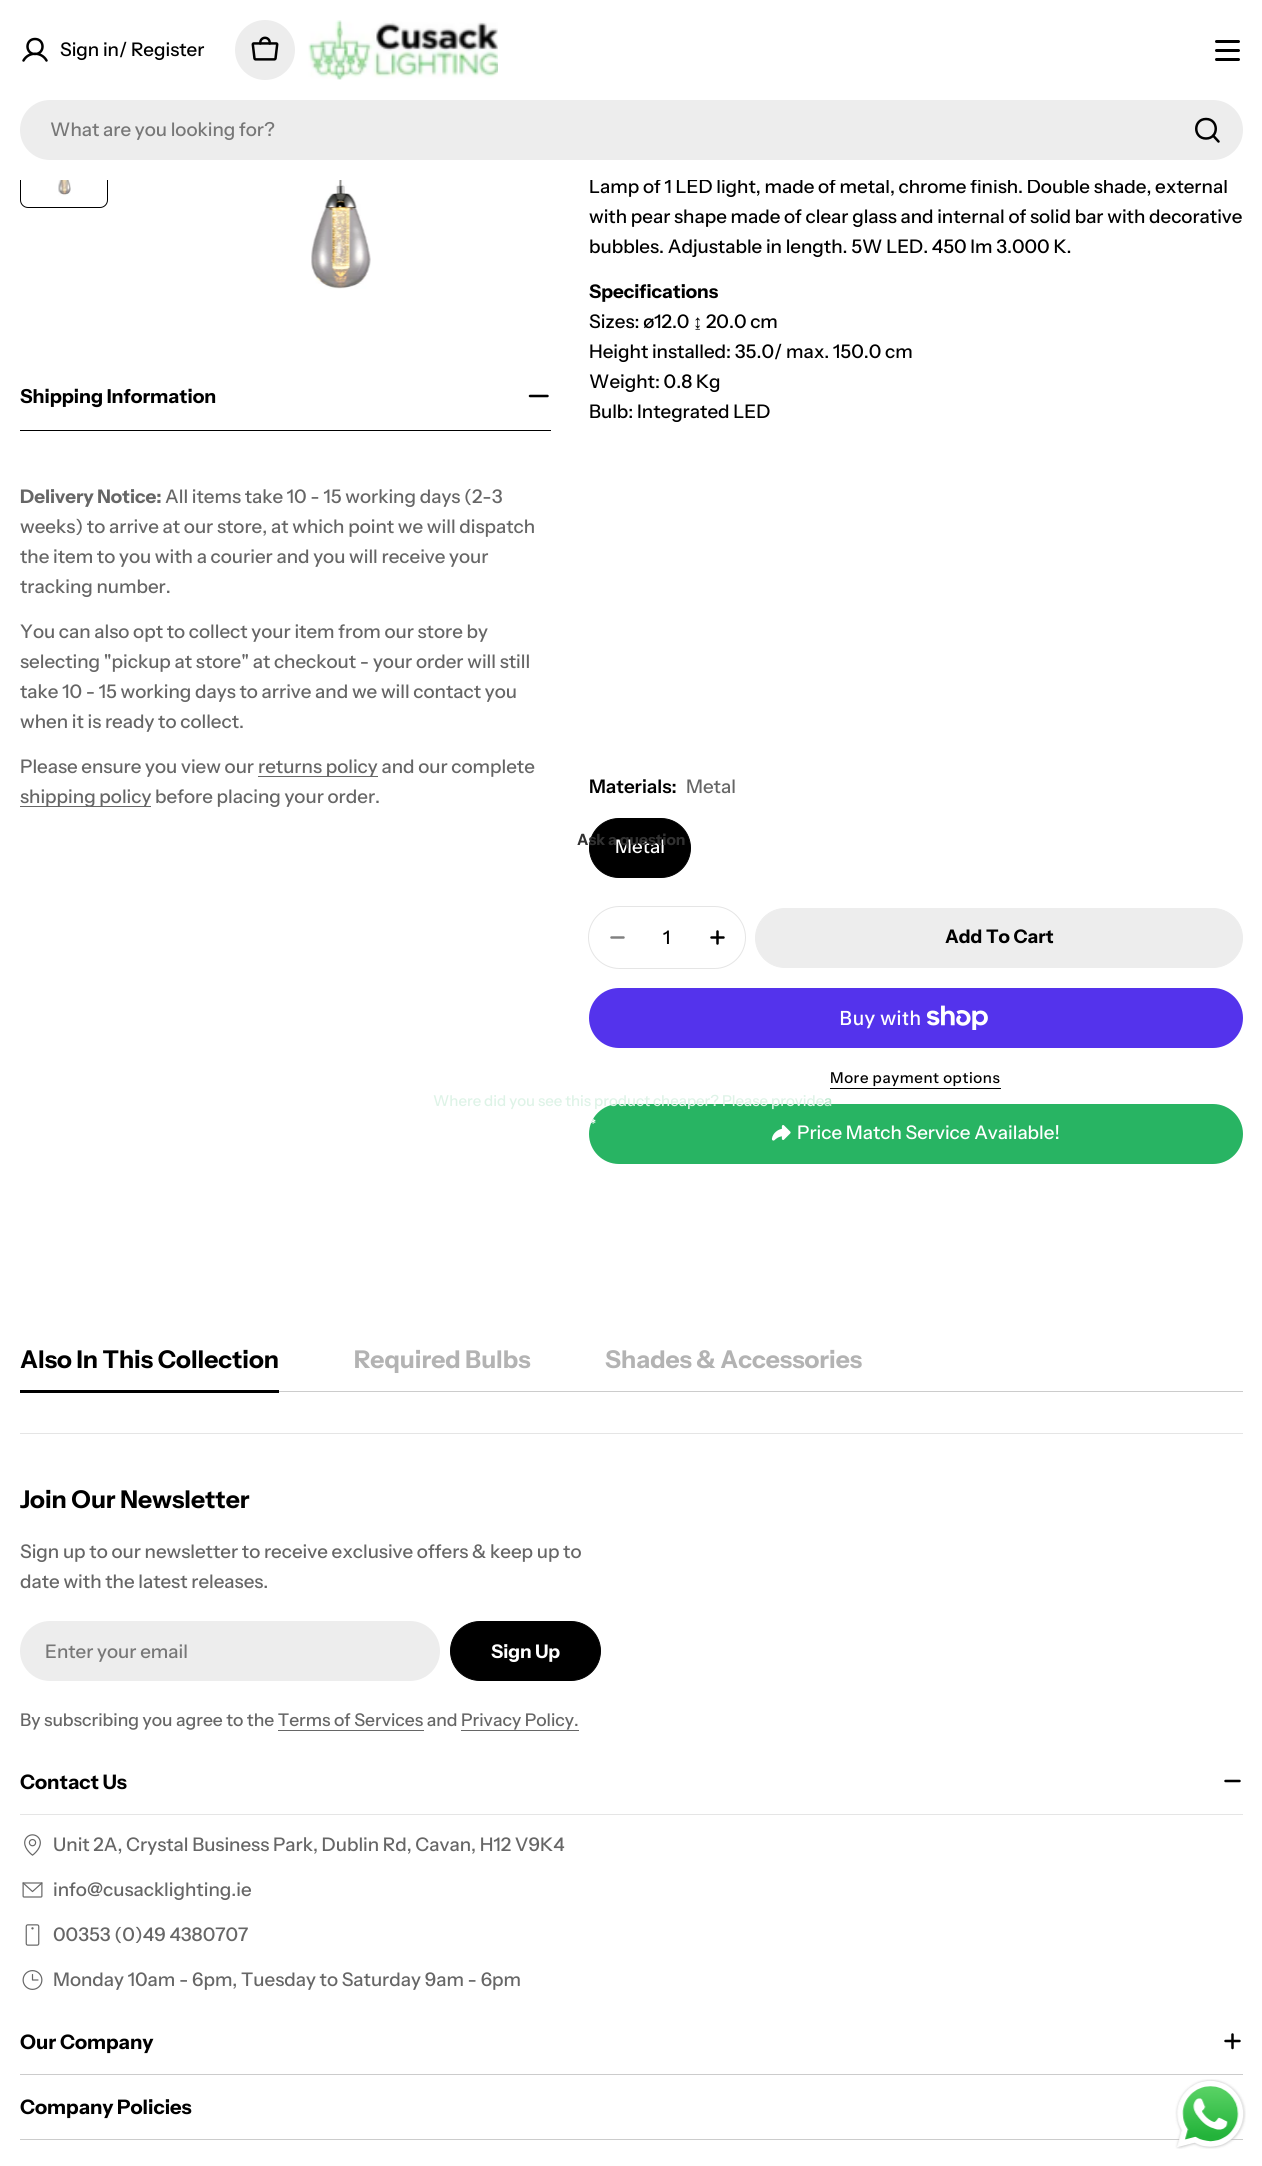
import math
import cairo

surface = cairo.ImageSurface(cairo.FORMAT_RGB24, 1262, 2166)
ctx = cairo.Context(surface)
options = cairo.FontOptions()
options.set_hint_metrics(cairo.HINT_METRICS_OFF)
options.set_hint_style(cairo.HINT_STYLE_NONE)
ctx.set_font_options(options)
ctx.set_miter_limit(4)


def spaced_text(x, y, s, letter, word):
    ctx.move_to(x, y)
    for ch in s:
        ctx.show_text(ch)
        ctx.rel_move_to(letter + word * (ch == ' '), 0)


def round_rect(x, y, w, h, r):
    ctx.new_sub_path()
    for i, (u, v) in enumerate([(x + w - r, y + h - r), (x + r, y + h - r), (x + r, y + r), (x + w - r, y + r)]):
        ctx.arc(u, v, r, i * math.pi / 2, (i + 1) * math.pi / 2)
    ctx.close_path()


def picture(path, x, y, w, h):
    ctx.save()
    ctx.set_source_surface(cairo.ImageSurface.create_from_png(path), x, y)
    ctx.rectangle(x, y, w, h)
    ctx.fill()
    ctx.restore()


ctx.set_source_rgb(1, 1, 1)
ctx.paint()
picture("img3.png", 58, 180, 13, 16)
round_rect(20.5, 120.5, 87, 87, 7.5)
ctx.set_source_rgb(0, 0, 0)
ctx.set_line_width(1)
ctx.stroke()
ctx.select_font_face("Instrument Sans Medium")
ctx.set_font_size(18.75)
ctx.move_to(589, 193)
ctx.show_text("Lamp of 1 LED light, made of metal, chrome finish. Double shade, external")
ctx.set_source_rgb(1, 1, 1)
ctx.rectangle(20, 120, 1207, 60)
ctx.fill()
ctx.new_path()
ctx.move_to(35, 54)
ctx.curve_to(45, 54, 45, 39, 35, 39)
ctx.curve_to(25, 39, 25, 54, 35, 54)
ctx.close_path()
ctx.move_to(23.5, 60.5)
ctx.curve_to(28.5, 51.5, 41.5, 51.5, 46.5, 60.5)
ctx.set_source_rgb(0, 0, 0)
ctx.set_line_width(2.5)
ctx.set_line_cap(cairo.LINE_CAP_ROUND)
ctx.set_line_join(cairo.LINE_JOIN_ROUND)
ctx.stroke()
ctx.move_to(60, 56)
ctx.show_text("Sign in/ Register")
ctx.set_source_rgb(0.929, 0.929, 0.929)
ctx.new_path()
ctx.arc(265, 50, 30, 0, 2 * math.pi)
ctx.fill()
picture("img1.png", 251, 36, 28, 25)
picture("img2.png", 308, 20, 190, 60)
ctx.set_source_rgb(0, 0, 0)
round_rect(1215, 49, 25, 3, 1.5)
ctx.fill()
round_rect(1215, 40, 25, 3, 1.5)
ctx.fill()
round_rect(1215, 58, 25, 3, 1.5)
ctx.fill()
ctx.set_source_rgb(0.929, 0.929, 0.929)
round_rect(20, 100, 1223, 60, 30)
ctx.fill()
ctx.set_source_rgb(0.467, 0.467, 0.467)
ctx.move_to(50, 136)
ctx.show_text("What are you looking for?")
ctx.new_path()
ctx.move_to(1206, 138.5)
ctx.curve_to(1219, 138.5, 1219, 119, 1206, 119)
ctx.curve_to(1193, 119, 1193, 138.5, 1206, 138.5)
ctx.close_path()
ctx.move_to(1213, 135.5)
ctx.line_to(1218.5, 141.5)
ctx.set_source_rgb(0, 0, 0)
ctx.stroke()
picture("img4.png", 311, 180, 60, 109)
ctx.rectangle(20, 430, 531, 1)
ctx.fill()
ctx.select_font_face("Instrument Sans", cairo.FONT_SLANT_NORMAL, cairo.FONT_WEIGHT_BOLD)
ctx.set_font_size(19.25)
ctx.move_to(20, 403)
ctx.show_text("Shipping Information")
ctx.new_path()
ctx.move_to(530, 396)
ctx.line_to(547.5, 396)
ctx.move_to(530, 396)
ctx.line_to(547.5, 396)
ctx.stroke()
ctx.set_font_size(18.75)
ctx.set_source_rgb(0.4, 0.4, 0.4)
ctx.move_to(20, 503)
ctx.show_text("Delivery Notice:")
ctx.select_font_face("Instrument Sans Medium")
ctx.move_to(165, 503)
ctx.show_text("All items take 10 - 15 working days (2-3")
ctx.move_to(20, 533)
ctx.show_text("weeks) to arrive at our store, at which point we will dispatch")
ctx.move_to(20, 563)
ctx.show_text("the item to you with a courier and you will receive your")
ctx.move_to(20, 593)
ctx.show_text("tracking number.")
ctx.move_to(20, 638)
ctx.show_text("You can also opt to collect your item from our store by")
ctx.move_to(20, 668)
ctx.show_text("selecting \"pickup at store\" at checkout - your order will still")
ctx.move_to(20, 698)
ctx.show_text("take 10 - 15 working days to arrive and we will contact you")
ctx.move_to(20, 728)
ctx.show_text("when it is ready to collect.")
ctx.move_to(20, 773)
ctx.show_text("Please ensure you view our")
ctx.rectangle(258, 776, 120, 1)
ctx.fill()
ctx.move_to(258, 773)
ctx.show_text("returns policy and our complete")
ctx.rectangle(20, 806, 131, 1)
ctx.fill()
ctx.move_to(20, 803)
ctx.show_text("shipping policy before placing your order.")
ctx.set_source_rgb(0, 0, 0)
ctx.move_to(589, 223)
ctx.show_text("with pear shape made of clear glass and internal of solid bar with decorative")
ctx.move_to(589, 253)
ctx.show_text("bubbles. Adjustable in length. 5W LED. 450 lm 3.000 K.")
ctx.select_font_face("Instrument Sans", cairo.FONT_SLANT_NORMAL, cairo.FONT_WEIGHT_BOLD)
ctx.move_to(589, 298)
ctx.show_text("Specifications")
ctx.select_font_face("Instrument Sans Medium")
ctx.move_to(589, 328)
ctx.show_text("Sizes: ø12.0")
ctx.select_font_face("Liberation Sans")
ctx.move_to(693, 328)
ctx.show_text("↨")
ctx.select_font_face("Instrument Sans Medium")
ctx.move_to(706, 328)
ctx.show_text("20.0 cm")
ctx.move_to(589, 358)
ctx.show_text("Height installed: 35.0/ max. 150.0 cm")
ctx.move_to(589, 388)
ctx.show_text("Weight: 0.8 Kg")
ctx.move_to(589, 418)
ctx.show_text("Bulb: Integrated LED")
ctx.select_font_face("Instrument Sans SemiBold")
ctx.move_to(589, 793)
ctx.show_text("Materials:")
ctx.select_font_face("Instrument Sans Medium")
ctx.set_source_rgb(0.4, 0.4, 0.4)
ctx.move_to(686, 793)
ctx.show_text("Metal")
ctx.set_source_rgb(0, 0, 0)
round_rect(589.5, 818.5, 101, 59, 29.5)
ctx.fill_preserve()
ctx.set_line_width(1)
ctx.set_line_cap(cairo.LINE_CAP_BUTT)
ctx.set_line_join(cairo.LINE_JOIN_MITER)
ctx.stroke()
ctx.set_source_rgb(1, 1, 1)
ctx.move_to(615, 853)
ctx.show_text("Metal")
ctx.select_font_face("Instrument Sans", cairo.FONT_SLANT_NORMAL, cairo.FONT_WEIGHT_BOLD)
ctx.set_font_size(15.5)
ctx.set_source_rgb(0.192, 0.192, 0.192)
ctx.move_to(577, 845)
ctx.show_text("Ask a question")
ctx.set_source_rgb(0.157, 0.706, 0.388)
round_rect(589, 1104, 654, 60, 30)
ctx.fill()
ctx.select_font_face("Instrument Sans Medium")
ctx.set_font_size(15)
ctx.set_source_rgb(0.871, 0.953, 0.906)
ctx.move_to(433, 1106)
ctx.show_text("Where did you see this product cheaper? Please provide")
ctx.set_source_rgb(0.725, 0.906, 0.8)
ctx.move_to(824, 1106)
ctx.show_text("a")
ctx.set_source_rgb(1, 1, 1)
spaced_text(590, 1130, "*", 0, 4)
picture("img5.png", 771, 1125, 20, 16)
ctx.set_font_size(18.75)
ctx.move_to(797, 1139)
ctx.show_text("Price Match Service Available!")
round_rect(588.5, 906.5, 157, 62, 31)
ctx.set_source_rgb(0.898, 0.898, 0.898)
ctx.stroke()
ctx.new_path()
ctx.move_to(611.5, 937.5)
ctx.line_to(623.5, 937.5)
ctx.set_source_rgb(0.502, 0.502, 0.502)
ctx.set_line_width(2.5)
ctx.set_line_cap(cairo.LINE_CAP_ROUND)
ctx.set_line_join(cairo.LINE_JOIN_ROUND)
ctx.stroke()
ctx.set_source_rgb(0, 0, 0)
ctx.move_to(663, 944)
ctx.show_text("1")
ctx.new_path()
ctx.move_to(711.5, 937.5)
ctx.line_to(723.5, 937.5)
ctx.move_to(717.5, 931.5)
ctx.line_to(717.5, 943.5)
ctx.stroke()
ctx.set_source_rgb(0.929, 0.929, 0.929)
round_rect(755.5, 908.5, 487, 59, 29.5)
ctx.fill_preserve()
ctx.set_line_width(1)
ctx.set_line_cap(cairo.LINE_CAP_BUTT)
ctx.set_line_join(cairo.LINE_JOIN_MITER)
ctx.stroke()
ctx.select_font_face("Instrument Sans", cairo.FONT_SLANT_NORMAL, cairo.FONT_WEIGHT_BOLD)
ctx.set_source_rgb(0, 0, 0)
ctx.move_to(945, 943)
ctx.show_text("Add To Cart")
ctx.set_source_rgb(0.329, 0.2, 0.922)
round_rect(589, 988, 654, 60, 30)
ctx.fill()
ctx.select_font_face("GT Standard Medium")
ctx.set_font_size(20)
ctx.set_source_rgb(1, 1, 1)
ctx.move_to(839, 1025)
ctx.show_text("Buy with")
picture("img6.png", 926, 1005, 62, 25)
ctx.select_font_face("Instrument Sans Medium")
ctx.set_font_size(15)
ctx.set_source_rgb(0, 0, 0)
spaced_text(830, 1083, "More payment options", 0.6, 0)
ctx.rectangle(830, 1088, 171, 1)
ctx.fill()
ctx.select_font_face("Instrument Sans", cairo.FONT_SLANT_NORMAL, cairo.FONT_WEIGHT_BOLD)
ctx.set_font_size(24.5)
ctx.move_to(20, 1368)
ctx.show_text("Also In This Collection")
ctx.rectangle(20, 1390, 259, 3)
ctx.fill()
ctx.set_source_rgb(0.702, 0.702, 0.702)
ctx.move_to(354, 1368)
ctx.show_text("Required Bulbs")
ctx.move_to(605, 1368)
ctx.show_text("Shades & Accessories")
ctx.set_source_rgb(0.8, 0.8, 0.8)
ctx.rectangle(279, 1391, 964, 1)
ctx.fill()
ctx.set_source_rgb(0.898, 0.898, 0.898)
ctx.rectangle(20, 1433, 1223, 1)
ctx.fill()
ctx.set_source_rgb(0, 0, 0)
ctx.move_to(20, 1508)
ctx.show_text("Join Our Newsletter")
ctx.select_font_face("Instrument Sans Medium")
ctx.set_font_size(18.75)
ctx.set_source_rgb(0.4, 0.4, 0.4)
ctx.move_to(20, 1558)
ctx.show_text("Sign up to our newsletter to receive exclusive offers & keep up to")
ctx.move_to(20, 1588)
ctx.show_text("date with the latest releases.")
ctx.set_source_rgb(0.929, 0.929, 0.929)
round_rect(20, 1621, 420, 60, 30)
ctx.fill()
ctx.set_source_rgb(0.467, 0.467, 0.467)
ctx.move_to(45, 1658)
ctx.show_text("Enter your email")
ctx.set_source_rgb(0, 0, 0)
round_rect(450.5, 1621.5, 150, 59, 29.5)
ctx.fill_preserve()
ctx.stroke()
ctx.select_font_face("Instrument Sans", cairo.FONT_SLANT_NORMAL, cairo.FONT_WEIGHT_BOLD)
ctx.set_source_rgb(1, 1, 1)
ctx.move_to(491, 1658)
ctx.show_text("Sign Up")
ctx.select_font_face("Instrument Sans Medium")
ctx.set_font_size(17.5)
ctx.set_source_rgb(0.4, 0.4, 0.4)
ctx.move_to(20, 1726)
ctx.show_text("By subscribing you agree to the Terms of Services and Privacy Policy.")
ctx.rectangle(278, 1730, 146, 1)
ctx.fill()
ctx.rectangle(461, 1730, 118, 1)
ctx.fill()
ctx.set_source_rgb(0.898, 0.898, 0.898)
ctx.rectangle(20, 1814, 1223, 1)
ctx.fill()
ctx.select_font_face("Instrument Sans", cairo.FONT_SLANT_NORMAL, cairo.FONT_WEIGHT_BOLD)
ctx.set_font_size(20)
ctx.set_source_rgb(0, 0, 0)
ctx.move_to(20, 1789)
ctx.show_text("Contact Us")
ctx.new_path()
ctx.move_to(1225.5, 1781)
ctx.line_to(1239.5, 1781)
ctx.move_to(1225.5, 1781)
ctx.line_to(1239.5, 1781)
ctx.set_line_width(2.5)
ctx.set_line_cap(cairo.LINE_CAP_ROUND)
ctx.set_line_join(cairo.LINE_JOIN_ROUND)
ctx.stroke()
picture("img7.png", 24, 1834, 17, 22)
ctx.select_font_face("Instrument Sans Medium")
ctx.set_font_size(18.75)
ctx.set_source_rgb(0.4, 0.4, 0.4)
ctx.move_to(53, 1851)
ctx.show_text("Unit 2A, Crystal Business Park, Dublin Rd, Cavan, H12 V9K4")
picture("img8.png", 22, 1882, 21, 16)
ctx.move_to(53, 1896)
ctx.show_text("info@cusacklighting.ie")
picture("img9.png", 25, 1924, 15, 22)
ctx.move_to(53, 1941)
ctx.show_text("00353 (0)49 4380707")
picture("img10.png", 22, 1970, 21, 20)
ctx.move_to(53, 1986)
ctx.show_text("Monday 10am - 6pm, Tuesday to Saturday 9am - 6pm")
ctx.set_source_rgb(0.8, 0.8, 0.8)
ctx.rectangle(20, 2074, 1223, 1)
ctx.fill()
ctx.select_font_face("Instrument Sans", cairo.FONT_SLANT_NORMAL, cairo.FONT_WEIGHT_BOLD)
ctx.set_font_size(20)
ctx.set_source_rgb(0, 0, 0)
ctx.move_to(20, 2049)
ctx.show_text("Our Company")
ctx.new_path()
ctx.move_to(1225.5, 2041)
ctx.line_to(1239.5, 2041)
ctx.move_to(1232.5, 2034.5)
ctx.line_to(1232.5, 2048)
ctx.stroke()
ctx.set_source_rgb(0.8, 0.8, 0.8)
ctx.rectangle(20, 2139, 1223, 1)
ctx.fill()
ctx.set_source_rgb(0, 0, 0)
ctx.move_to(20, 2114)
ctx.show_text("Company Policies")
picture("img11.png", 1175, 2079, 71, 70)
surface.write_to_png("page.png")
